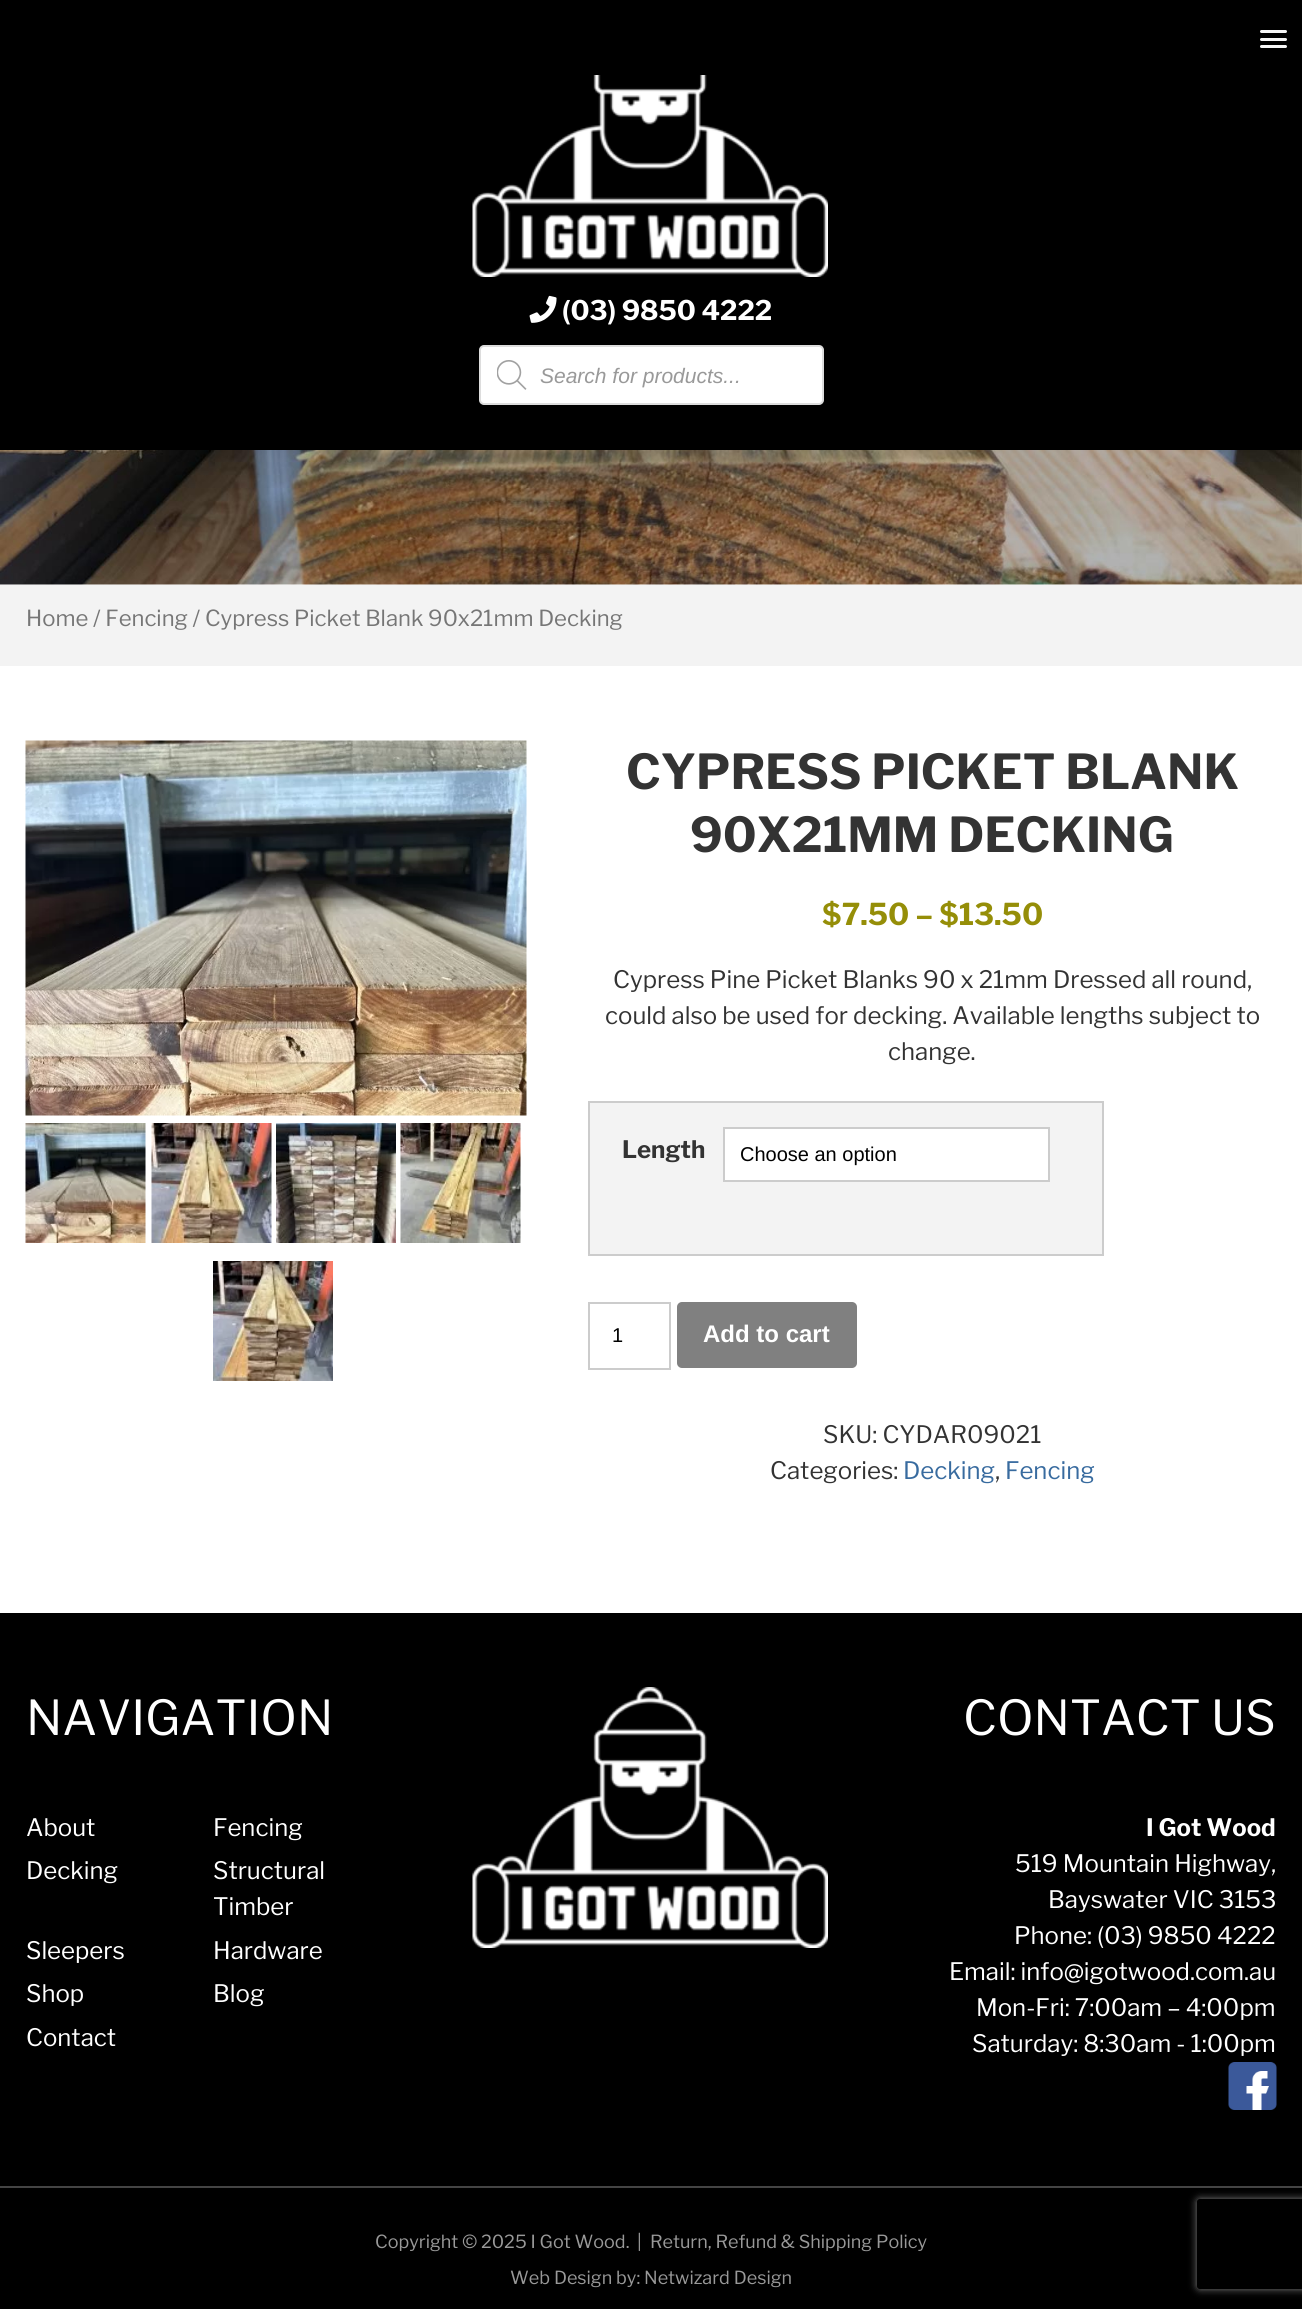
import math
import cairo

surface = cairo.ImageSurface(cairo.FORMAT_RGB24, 1302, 2309)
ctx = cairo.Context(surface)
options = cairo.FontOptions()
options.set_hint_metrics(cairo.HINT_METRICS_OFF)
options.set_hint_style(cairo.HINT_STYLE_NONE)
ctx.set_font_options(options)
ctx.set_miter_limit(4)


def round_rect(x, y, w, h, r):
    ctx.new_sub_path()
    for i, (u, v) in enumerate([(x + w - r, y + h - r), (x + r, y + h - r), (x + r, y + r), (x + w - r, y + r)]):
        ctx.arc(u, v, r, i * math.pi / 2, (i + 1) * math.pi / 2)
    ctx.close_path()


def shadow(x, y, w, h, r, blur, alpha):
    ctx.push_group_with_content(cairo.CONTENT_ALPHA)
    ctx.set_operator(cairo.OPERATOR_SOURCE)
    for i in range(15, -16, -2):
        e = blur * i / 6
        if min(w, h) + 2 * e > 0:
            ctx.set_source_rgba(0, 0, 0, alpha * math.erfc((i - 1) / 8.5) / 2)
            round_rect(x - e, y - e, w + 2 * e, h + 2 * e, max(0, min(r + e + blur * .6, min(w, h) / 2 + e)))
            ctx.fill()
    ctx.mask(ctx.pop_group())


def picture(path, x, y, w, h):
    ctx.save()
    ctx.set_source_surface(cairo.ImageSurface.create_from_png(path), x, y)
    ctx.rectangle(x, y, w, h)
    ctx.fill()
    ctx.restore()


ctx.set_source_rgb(1, 1, 1)
ctx.paint()
ctx.set_source_rgb(0, 0, 0)
ctx.rectangle(0, 0, 1302, 450)
ctx.fill()
ctx.set_source_rgb(0.961, 0.961, 0.961)
round_rect(1260, 30, 27, 3, 1.5)
ctx.fill()
round_rect(1260, 38, 27, 3, 1.5)
ctx.fill()
round_rect(1260, 45, 27, 3, 1.5)
ctx.fill()
picture("img1.png", 472, 75, 356, 202)
picture("img2.png", 529, 295, 28, 28)
ctx.select_font_face("Libre Franklin", cairo.FONT_SLANT_NORMAL, cairo.FONT_WEIGHT_BOLD)
ctx.set_font_size(27)
ctx.set_source_rgb(1, 1, 1)
ctx.move_to(562, 320)
ctx.show_text("(03) 9850 4222")
round_rect(480, 346, 343, 58, 4)
ctx.fill_preserve()
ctx.set_source_rgb(0.867, 0.867, 0.867)
ctx.stroke()
picture("img3.png", 497, 360, 30, 30)
ctx.select_font_face("Liberation Sans", cairo.FONT_SLANT_ITALIC)
ctx.set_font_size(21)
ctx.set_source_rgb(0.6, 0.6, 0.6)
ctx.move_to(540, 383)
ctx.show_text("Search for products...")
picture("img4.png", 0, 450, 1302, 135)
ctx.set_source_rgb(0.953, 0.953, 0.953)
ctx.rectangle(0, 585, 1302, 81)
ctx.fill()
ctx.select_font_face("Libre Franklin")
ctx.set_font_size(22.1)
ctx.set_source_rgb(0.463, 0.463, 0.463)
ctx.move_to(26, 626)
ctx.show_text("Home / Fencing / Cypress Picket Blank 90x21mm Decking")
picture("img5.png", 25, 740, 502, 376)
picture("img6.png", 25, 1123, 121, 120)
picture("img7.png", 151, 1123, 121, 120)
picture("img8.png", 276, 1123, 120, 120)
picture("img9.png", 400, 1123, 121, 120)
picture("img10.png", 213, 1261, 120, 120)
ctx.select_font_face("Libre Franklin", cairo.FONT_SLANT_NORMAL, cairo.FONT_WEIGHT_BOLD)
ctx.set_font_size(48)
ctx.set_source_rgb(0.2, 0.2, 0.2)
ctx.move_to(626, 789)
ctx.show_text("CYPRESS PICKET BLANK")
ctx.move_to(690, 852)
ctx.show_text("90X21MM DECKING")
ctx.set_font_size(30)
ctx.set_source_rgb(0.584, 0.557, 0.035)
ctx.move_to(822, 925)
ctx.show_text("$7.50 – $13.50")
ctx.select_font_face("Libre Franklin")
ctx.set_font_size(24)
ctx.set_source_rgb(0.2, 0.2, 0.2)
ctx.move_to(613, 988)
ctx.show_text("Cypress Pine Picket Blanks 90 x 21mm Dressed all round,")
ctx.move_to(605, 1024)
ctx.show_text("could also be used for decking. Available lengths subject to")
ctx.move_to(888, 1060)
ctx.show_text("change.")
ctx.set_source_rgb(0.953, 0.953, 0.953)
ctx.rectangle(589, 1102, 514, 153)
ctx.fill_preserve()
ctx.set_source_rgb(0.8, 0.8, 0.8)
ctx.stroke()
ctx.select_font_face("Libre Franklin", cairo.FONT_SLANT_NORMAL, cairo.FONT_WEIGHT_BOLD)
ctx.set_source_rgb(0.2, 0.2, 0.2)
ctx.move_to(622, 1158)
ctx.show_text("Length")
ctx.set_source_rgb(1, 1, 1)
ctx.rectangle(724, 1128, 325, 53)
ctx.fill_preserve()
ctx.set_source_rgb(0.8, 0.8, 0.8)
ctx.stroke()
ctx.select_font_face("Liberation Sans")
ctx.set_font_size(20)
ctx.set_source_rgb(0, 0, 0)
ctx.move_to(740, 1161)
ctx.show_text("Choose an option")
ctx.rectangle(589, 1303, 81, 66)
ctx.set_source_rgb(0.8, 0.8, 0.8)
ctx.stroke()
ctx.set_source_rgb(0, 0, 0)
ctx.move_to(612, 1342)
ctx.show_text("1")
ctx.set_source_rgb(0.502, 0.502, 0.502)
round_rect(677, 1302, 180, 66, 5)
ctx.fill()
ctx.select_font_face("Liberation Sans", cairo.FONT_SLANT_NORMAL, cairo.FONT_WEIGHT_BOLD)
ctx.set_font_size(24)
ctx.set_source_rgb(1, 1, 1)
ctx.move_to(703, 1342)
ctx.show_text("Add to cart")
ctx.select_font_face("Libre Franklin")
ctx.set_source_rgb(0.2, 0.2, 0.2)
ctx.move_to(823, 1443)
ctx.show_text("SKU: CYDAR09021")
ctx.move_to(770, 1479)
ctx.show_text("Categories:")
ctx.set_source_rgb(0.22, 0.42, 0.624)
ctx.move_to(903, 1479)
ctx.show_text("Decking")
ctx.set_source_rgb(0.2, 0.2, 0.2)
ctx.move_to(995, 1479)
ctx.show_text(",")
ctx.set_source_rgb(0.22, 0.42, 0.624)
ctx.move_to(1005, 1479)
ctx.show_text("Fencing")
ctx.set_source_rgb(0, 0, 0)
ctx.rectangle(0, 1613, 1302, 573)
ctx.fill()
ctx.set_font_size(48)
ctx.set_source_rgb(1, 1, 1)
ctx.move_to(26, 1735)
ctx.show_text("NAVIGATION")
ctx.set_font_size(24)
ctx.move_to(26, 1836)
ctx.show_text("About")
ctx.move_to(213, 1836)
ctx.show_text("Fencing")
ctx.move_to(26, 1879)
ctx.show_text("Decking")
ctx.move_to(213, 1879)
ctx.show_text("Structural")
ctx.move_to(213, 1915)
ctx.show_text("Timber")
ctx.move_to(26, 1959)
ctx.show_text("Sleepers")
ctx.move_to(213, 1959)
ctx.show_text("Hardware")
ctx.move_to(26, 2002)
ctx.show_text("Shop")
ctx.move_to(213, 2002)
ctx.show_text("Blog")
ctx.move_to(26, 2046)
ctx.show_text("Contact")
picture("img11.png", 472, 1687, 356, 261)
ctx.set_font_size(48)
ctx.move_to(963, 1735)
ctx.show_text("CONTACT US")
ctx.select_font_face("Libre Franklin", cairo.FONT_SLANT_NORMAL, cairo.FONT_WEIGHT_BOLD)
ctx.set_font_size(24)
ctx.move_to(1146, 1836)
ctx.show_text("I Got Wood")
ctx.select_font_face("Libre Franklin")
ctx.move_to(1015, 1872)
ctx.show_text("519 Mountain Highway,")
ctx.move_to(1048, 1908)
ctx.show_text("Bayswater VIC 3153")
ctx.move_to(1014, 1944)
ctx.show_text("Phone: (03) 9850 4222")
ctx.move_to(949, 1980)
ctx.show_text("Email: info@igotwood.com.au")
ctx.move_to(976, 2016)
ctx.show_text("Mon-Fri: 7:00am – 4:00pm")
ctx.move_to(972, 2052)
ctx.show_text("Saturday: 8:30am - 1:00pm")
picture("img12.png", 1228, 2062, 49, 48)
ctx.set_source_rgb(0, 0, 0)
ctx.rectangle(0, 2188, 1302, 121)
ctx.fill()
ctx.set_source_rgb(0.267, 0.267, 0.267)
ctx.rectangle(0, 2186, 1302, 2)
ctx.fill()
ctx.set_font_size(18)
ctx.set_source_rgb(0.6, 0.6, 0.6)
ctx.move_to(375, 2248)
ctx.show_text("Copyright © 2025 I Got Wood.")
ctx.move_to(637, 2248)
ctx.show_text("|")
ctx.move_to(650, 2248)
ctx.show_text("Return, Refund & Shipping Policy")
ctx.move_to(510, 2284)
ctx.show_text("Web Design by: Netwizard Design")
ctx.save()
ctx.set_fill_rule(cairo.FILL_RULE_EVEN_ODD)
ctx.new_path()
ctx.move_to(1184, 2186)
ctx.line_to(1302, 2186)
ctx.line_to(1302, 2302)
ctx.line_to(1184, 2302)
ctx.close_path()
ctx.move_to(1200, 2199)
ctx.line_to(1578, 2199)
ctx.curve_to(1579.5, 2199, 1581, 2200.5, 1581, 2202)
ctx.line_to(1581, 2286)
ctx.curve_to(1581, 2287.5, 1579.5, 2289, 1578, 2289)
ctx.line_to(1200, 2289)
ctx.curve_to(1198.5, 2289, 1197, 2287.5, 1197, 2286)
ctx.line_to(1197, 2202)
ctx.curve_to(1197, 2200.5, 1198.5, 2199, 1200, 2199)
ctx.close_path()
ctx.clip()
ctx.set_source_rgb(0.502, 0.502, 0.502)
shadow(1197, 2199, 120, 90, 3, 4, 1)
ctx.restore()
surface.write_to_png("page.png")
